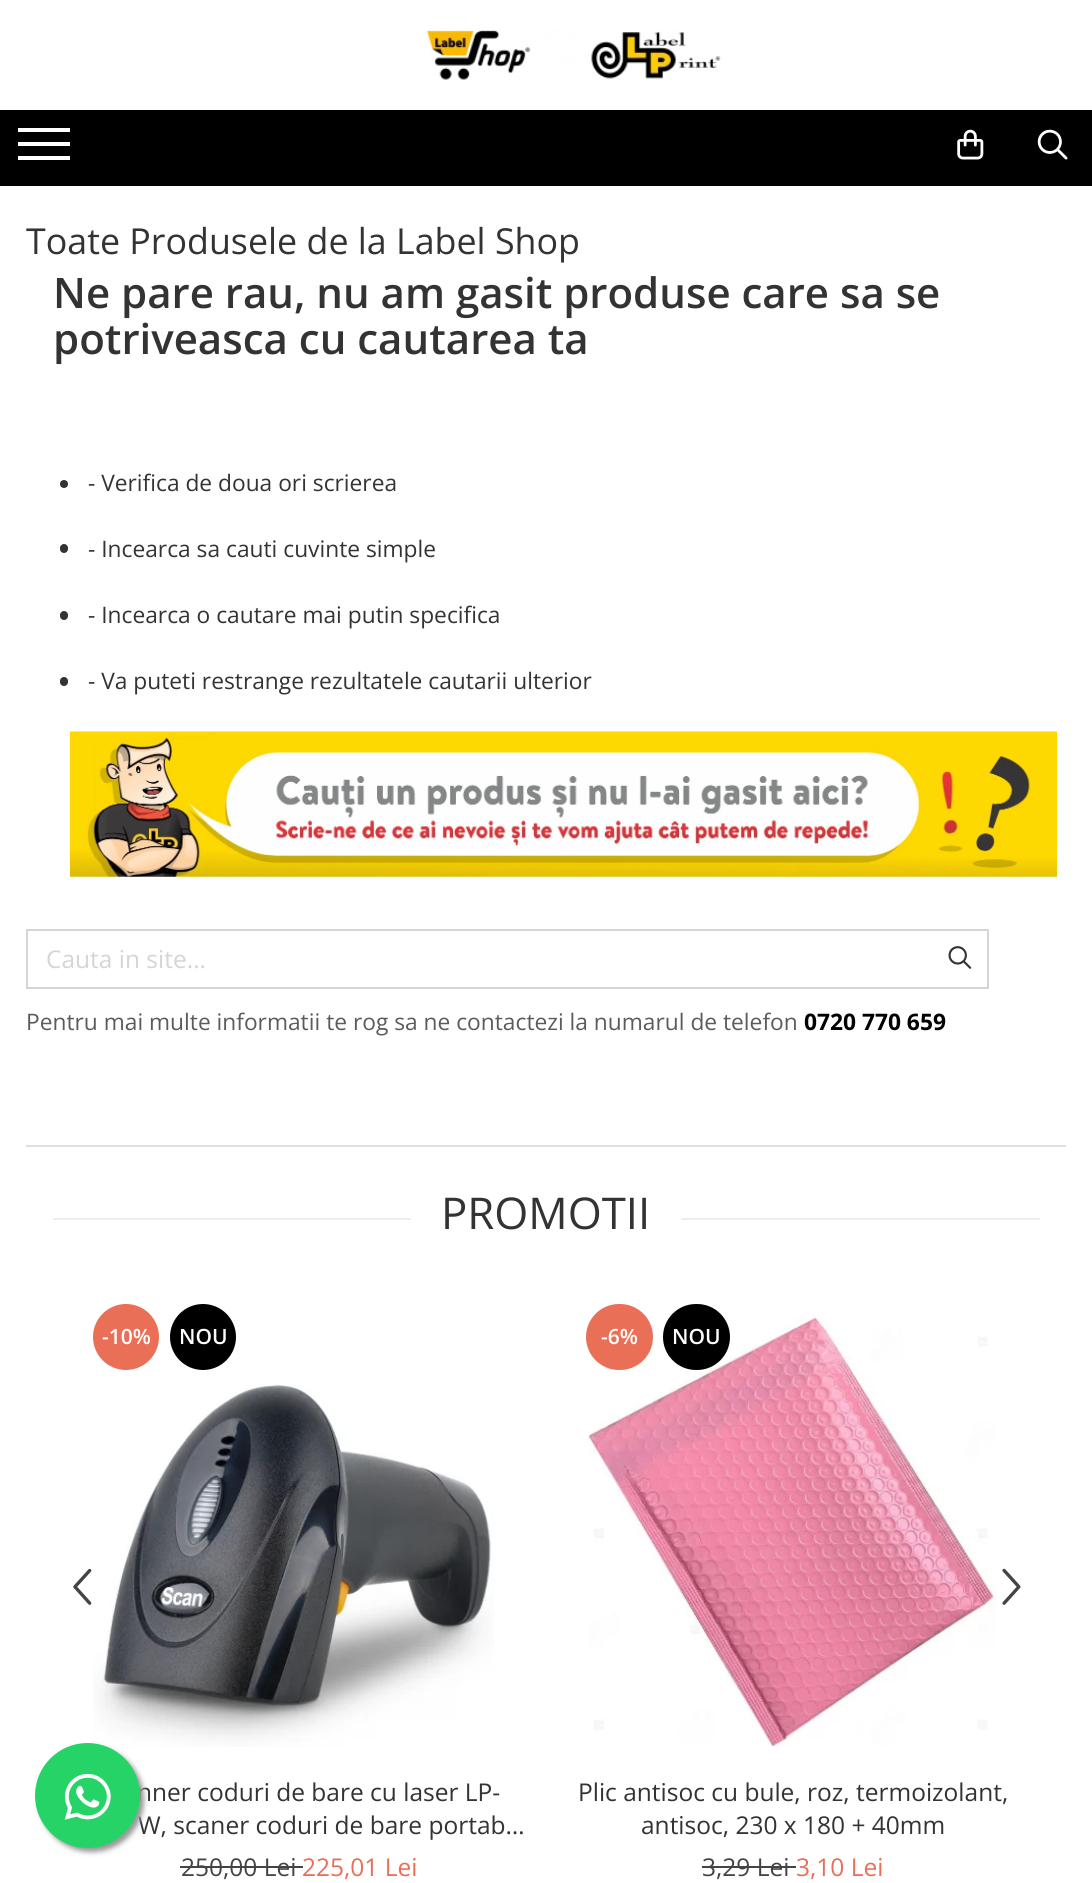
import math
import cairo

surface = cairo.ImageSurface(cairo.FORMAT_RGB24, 1092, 1883)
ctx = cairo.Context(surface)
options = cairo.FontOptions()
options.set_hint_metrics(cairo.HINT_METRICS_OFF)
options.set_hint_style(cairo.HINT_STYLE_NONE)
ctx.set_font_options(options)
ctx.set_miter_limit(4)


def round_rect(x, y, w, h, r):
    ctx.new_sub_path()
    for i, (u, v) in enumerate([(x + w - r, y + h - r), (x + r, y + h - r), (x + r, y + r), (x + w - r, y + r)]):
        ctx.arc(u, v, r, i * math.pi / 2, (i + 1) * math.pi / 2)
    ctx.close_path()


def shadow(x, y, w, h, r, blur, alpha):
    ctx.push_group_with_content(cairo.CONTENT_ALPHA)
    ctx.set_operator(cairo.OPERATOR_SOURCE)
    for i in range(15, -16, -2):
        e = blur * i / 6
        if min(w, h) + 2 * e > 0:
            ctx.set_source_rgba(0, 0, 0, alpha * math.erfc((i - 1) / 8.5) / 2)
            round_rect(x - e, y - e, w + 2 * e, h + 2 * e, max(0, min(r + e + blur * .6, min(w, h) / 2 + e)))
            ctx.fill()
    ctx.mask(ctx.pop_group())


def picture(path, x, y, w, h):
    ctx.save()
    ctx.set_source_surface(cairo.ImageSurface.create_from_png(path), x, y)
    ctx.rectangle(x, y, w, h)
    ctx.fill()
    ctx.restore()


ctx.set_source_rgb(1, 1, 1)
ctx.paint()
picture("img1.png", 426, 30, 295, 50)
ctx.set_source_rgb(0, 0, 0)
ctx.rectangle(0, 110, 1092, 76)
ctx.fill()
ctx.set_source_rgb(1, 1, 1)
ctx.rectangle(18, 142, 52, 4)
ctx.fill()
ctx.rectangle(18, 128, 52, 4)
ctx.fill()
ctx.rectangle(18, 156, 52, 4)
ctx.fill()
picture("img2.png", 957, 129, 27, 31)
picture("img3.png", 1037, 129, 31, 31)
ctx.select_font_face("Open Sans")
ctx.set_font_size(35.8)
ctx.set_source_rgb(0.2, 0.2, 0.2)
ctx.move_to(26, 254)
ctx.show_text("Toate Produsele de la Label Shop")
ctx.set_source_rgb(0.875, 0.875, 0.875)
ctx.rectangle(26, 1145, 1040, 2)
ctx.fill()
ctx.select_font_face("Open Sans SemiBold")
ctx.set_font_size(42)
ctx.set_source_rgb(0.2, 0.2, 0.2)
ctx.move_to(53, 308)
ctx.show_text("Ne pare rau, nu am gasit produse care sa se")
ctx.move_to(53, 354)
ctx.show_text("potriveasca cu cautarea ta")
ctx.new_path()
ctx.arc(64, 484, 4, 0, 2 * math.pi)
ctx.fill()
ctx.select_font_face("Open Sans")
ctx.set_font_size(22.75)
ctx.move_to(88, 491)
ctx.show_text("- Verifica de doua ori scrierea")
round_rect(60, 544, 8, 9, 4)
ctx.fill()
ctx.move_to(88, 557)
ctx.show_text("- Incearca sa cauti cuvinte simple")
round_rect(60, 611, 8, 9, 4)
ctx.fill()
ctx.move_to(88, 623)
ctx.show_text("- Incearca o cautare mai putin specifica")
round_rect(60, 677, 8, 9, 4)
ctx.fill()
ctx.move_to(88, 689)
ctx.show_text("- Va puteti restrange rezultatele cautarii ulterior")
picture("img4.png", 70, 731, 987, 146)
ctx.rectangle(27, 930, 961, 58)
ctx.set_source_rgb(0.835, 0.835, 0.835)
ctx.stroke()
ctx.set_font_size(24.5)
ctx.move_to(46, 968)
ctx.show_text("Cauta in site...")
picture("img5.png", 948, 946, 24, 23)
ctx.set_font_size(22.75)
ctx.set_source_rgb(0.357, 0.357, 0.357)
ctx.move_to(26, 1030)
ctx.show_text("Pentru mai multe informatii te rog sa ne contactezi la numarul de telefon")
ctx.select_font_face("Open Sans", cairo.FONT_SLANT_NORMAL, cairo.FONT_WEIGHT_BOLD)
ctx.set_source_rgb(0, 0, 0)
ctx.move_to(804, 1030)
ctx.show_text("0720 770 659")
ctx.set_source_rgb(0.933, 0.933, 0.933)
ctx.rectangle(53, 1218, 987, 2)
ctx.fill()
ctx.set_source_rgb(1, 1, 1)
ctx.rectangle(411, 1218, 270, 2)
ctx.fill()
ctx.select_font_face("Open Sans")
ctx.set_font_size(43.75)
ctx.set_source_rgb(0.2, 0.2, 0.2)
ctx.move_to(441, 1229)
ctx.show_text("PROMOTII")
ctx.set_source_rgb(0.914, 0.435, 0.337)
ctx.new_path()
ctx.arc(126, 1337, 33, 0, 2 * math.pi)
ctx.fill()
ctx.select_font_face("Open Sans SemiBold")
ctx.set_font_size(21)
ctx.set_source_rgb(1, 1, 1)
ctx.move_to(102, 1344)
ctx.show_text("-10%")
ctx.set_source_rgb(0, 0, 0)
ctx.new_path()
ctx.arc(203, 1337, 33, 0, 2 * math.pi)
ctx.fill()
ctx.set_source_rgb(1, 1, 1)
ctx.move_to(179, 1344)
ctx.show_text("NOU")
picture("img6.png", 93, 1384, 401, 363)
ctx.select_font_face("Open Sans")
ctx.set_font_size(24.5)
ctx.set_source_rgb(0.2, 0.2, 0.2)
ctx.move_to(137, 1801)
ctx.show_text("nner coduri de bare cu laser LP-")
ctx.move_to(138, 1834)
ctx.show_text("W, scaner coduri de bare portab…")
ctx.set_source_rgb(0.267, 0.267, 0.267)
ctx.move_to(181, 1876)
ctx.show_text("250,00 Lei")
ctx.rectangle(180, 1866, 123, 2)
ctx.fill()
ctx.set_source_rgb(0.914, 0.435, 0.337)
ctx.move_to(302, 1876)
ctx.show_text("225,01 Lei")
picture("img7.png", 588, 1315, 408, 432)
round_rect(586, 1304, 67, 66, 33)
ctx.fill()
ctx.select_font_face("Open Sans SemiBold")
ctx.set_font_size(21)
ctx.set_source_rgb(1, 1, 1)
ctx.move_to(601, 1344)
ctx.show_text("-6%")
ctx.set_source_rgb(0, 0, 0)
round_rect(663, 1304, 67, 66, 33)
ctx.fill()
ctx.set_source_rgb(1, 1, 1)
ctx.move_to(672, 1344)
ctx.show_text("NOU")
ctx.select_font_face("Open Sans")
ctx.set_font_size(24.5)
ctx.set_source_rgb(0.2, 0.2, 0.2)
ctx.move_to(578, 1801)
ctx.show_text("Plic antisoc cu bule, roz, termoizolant,")
ctx.move_to(641, 1834)
ctx.show_text("antisoc, 230 x 180 + 40mm")
ctx.set_source_rgb(0.267, 0.267, 0.267)
ctx.move_to(702, 1876)
ctx.show_text("3,29 Lei")
ctx.rectangle(702, 1866, 94, 2)
ctx.fill()
ctx.set_source_rgb(0.914, 0.435, 0.337)
ctx.move_to(796, 1876)
ctx.show_text("3,10 Lei")
picture("img8.png", 73, 1568, 19, 37)
picture("img9.png", 1002, 1568, 19, 37)
ctx.set_source_rgb(0.6, 0.6, 0.6)
shadow(39, 1747, 105, 105, 52.5, 2.5, 1)
ctx.set_source_rgb(0.145, 0.827, 0.4)
ctx.arc(87.5, 1795.5, 52.5, 0, 2 * math.pi)
ctx.fill()
picture("img10.png", 64, 1773, 47, 47)
surface.write_to_png("page.png")
